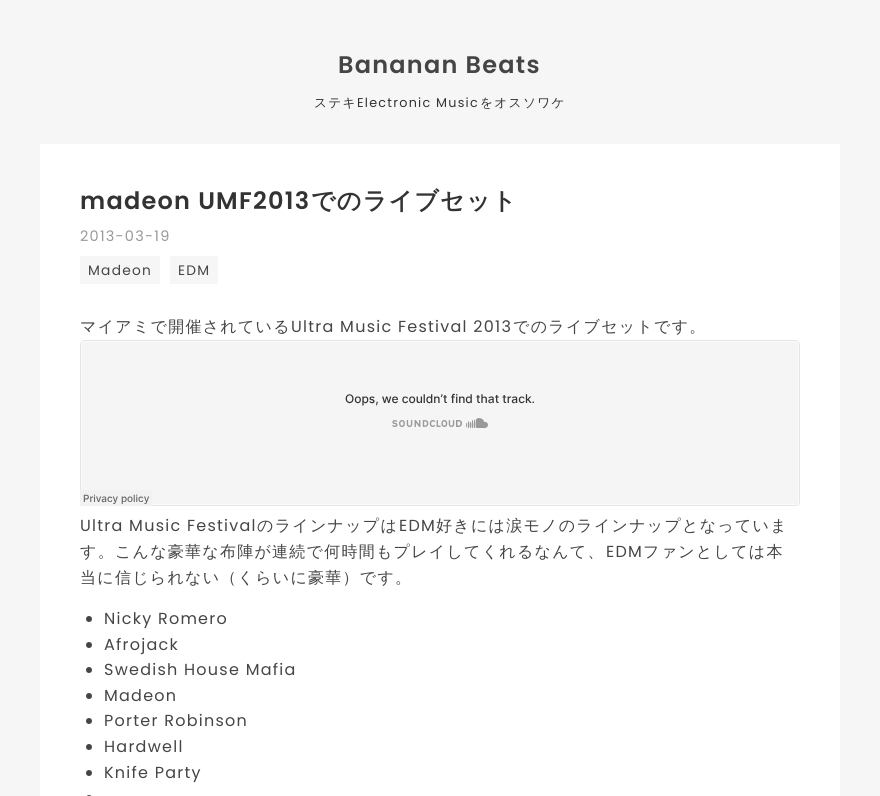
import math
import cairo

surface = cairo.ImageSurface(cairo.FORMAT_RGB24, 880, 796)
ctx = cairo.Context(surface)
options = cairo.FontOptions()
options.set_hint_metrics(cairo.HINT_METRICS_OFF)
options.set_hint_style(cairo.HINT_STYLE_NONE)
ctx.set_font_options(options)
ctx.set_miter_limit(4)


def spaced_text(x, y, s, letter, word):
    ctx.move_to(x, y)
    for ch in s:
        ctx.show_text(ch)
        ctx.rel_move_to(letter + word * (ch == ' '), 0)


def round_rect(x, y, w, h, r):
    ctx.new_sub_path()
    for i, (u, v) in enumerate([(x + w - r, y + h - r), (x + r, y + h - r), (x + r, y + r), (x + w - r, y + r)]):
        ctx.arc(u, v, r, i * math.pi / 2, (i + 1) * math.pi / 2)
    ctx.close_path()


def picture(path, x, y, w, h):
    ctx.save()
    ctx.set_source_surface(cairo.ImageSurface.create_from_png(path), x, y)
    ctx.rectangle(x, y, w, h)
    ctx.fill()
    ctx.restore()


ctx.set_source_rgb(0.961, 0.961, 0.961)
ctx.paint()
ctx.select_font_face("Poppins SemiBold")
ctx.set_font_size(24)
ctx.set_source_rgb(0.271, 0.271, 0.271)
spaced_text(338, 73, "Bananan Beats", 1.25, 0)
ctx.select_font_face("WenQuanYi Zen Hei Medium")
ctx.set_font_size(12.75)
ctx.set_source_rgb(0.2, 0.2, 0.2)
spaced_text(314, 107, "ステキ", 1.25, 0)
ctx.select_font_face("Poppins")
spaced_text(357, 107, "Electronic Music", 1.25, 0)
ctx.select_font_face("WenQuanYi Zen Hei Medium")
spaced_text(480, 107, "をオスソワケ", 1.25, 0)
ctx.set_source_rgb(1, 1, 1)
ctx.rectangle(40, 144, 800, 652)
ctx.fill()
ctx.select_font_face("Poppins SemiBold")
ctx.set_font_size(24)
ctx.set_source_rgb(0.2, 0.2, 0.2)
spaced_text(80, 209, "madeon UMF2013", 1.25, 0)
ctx.select_font_face("WenQuanYi Zen Hei", cairo.FONT_SLANT_NORMAL, cairo.FONT_WEIGHT_BOLD)
spaced_text(311, 209, "でのライブセット", 1.25, 0)
ctx.select_font_face("Poppins")
ctx.set_font_size(14.5)
ctx.set_source_rgb(0.6, 0.6, 0.6)
spaced_text(80, 241, "2013-03-19", 1.25, 0)
ctx.set_source_rgb(0.961, 0.961, 0.961)
ctx.rectangle(80, 256, 80, 28)
ctx.fill()
ctx.set_font_size(13.75)
ctx.set_source_rgb(0.271, 0.271, 0.271)
spaced_text(88, 275, "Madeon", 1.25, 0)
ctx.set_source_rgb(0.961, 0.961, 0.961)
ctx.rectangle(170, 256, 48, 28)
ctx.fill()
ctx.set_source_rgb(0.271, 0.271, 0.271)
spaced_text(178, 275, "EDM", 1.25, 0)
ctx.select_font_face("WenQuanYi Zen Hei Medium")
ctx.set_font_size(16)
spaced_text(80, 332, "マイアミで開催されている", 1.25, 0)
ctx.select_font_face("Poppins")
spaced_text(291, 332, "Ultra Music Festival 2013", 1.25, 0)
ctx.select_font_face("WenQuanYi Zen Hei Medium")
spaced_text(513, 332, "でのライブセットです。", 1.25, 0)
picture("img1.png", 80, 340, 720, 166)
ctx.select_font_face("Poppins")
spaced_text(80, 531, "Ultra Music Festival", 1.25, 0)
ctx.select_font_face("WenQuanYi Zen Hei Medium")
spaced_text(257, 531, "のラインナップは", 1.25, 0)
ctx.select_font_face("Poppins")
spaced_text(399, 531, "EDM", 1.25, 0)
ctx.select_font_face("WenQuanYi Zen Hei Medium")
spaced_text(436, 531, "好きには涙モノのラインナップとなっていま", 1.25, 0)
spaced_text(80, 557, "す。こんな豪華な布陣が連続で何時間もプレイしてくれるなんて、", 1.25, 0)
ctx.select_font_face("Poppins")
spaced_text(606, 557, "EDM", 1.25, 0)
ctx.select_font_face("WenQuanYi Zen Hei Medium")
spaced_text(643, 557, "ファンとしては本", 1.25, 0)
spaced_text(80, 583, "当に信じられない（くらいに豪華）です。", 1.25, 0)
ctx.new_path()
ctx.arc(89, 619, 3, 0, 2 * math.pi)
ctx.fill()
ctx.select_font_face("Poppins")
spaced_text(104, 624, "Nicky Romero", 1.25, 0)
ctx.new_path()
ctx.arc(89, 645, 3, 0, 2 * math.pi)
ctx.fill()
spaced_text(104, 650, "Afrojack", 1.25, 0)
ctx.new_path()
ctx.arc(89, 670, 3, 0, 2 * math.pi)
ctx.fill()
spaced_text(104, 675, "Swedish House Mafia", 1.25, 0)
ctx.new_path()
ctx.arc(89, 696, 3, 0, 2 * math.pi)
ctx.fill()
spaced_text(104, 701, "Madeon", 1.25, 0)
ctx.new_path()
ctx.arc(89, 721, 3, 0, 2 * math.pi)
ctx.fill()
spaced_text(104, 726, "Porter Robinson", 1.25, 0)
ctx.new_path()
ctx.arc(89, 747, 3, 0, 2 * math.pi)
ctx.fill()
spaced_text(104, 752, "Hardwell", 1.25, 0)
ctx.new_path()
ctx.arc(89, 773, 3, 0, 2 * math.pi)
ctx.fill()
spaced_text(104, 778, "Knife Party", 1.25, 0)
round_rect(86, 795, 6, 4, 3)
ctx.fill()
surface.write_to_png("page.png")
